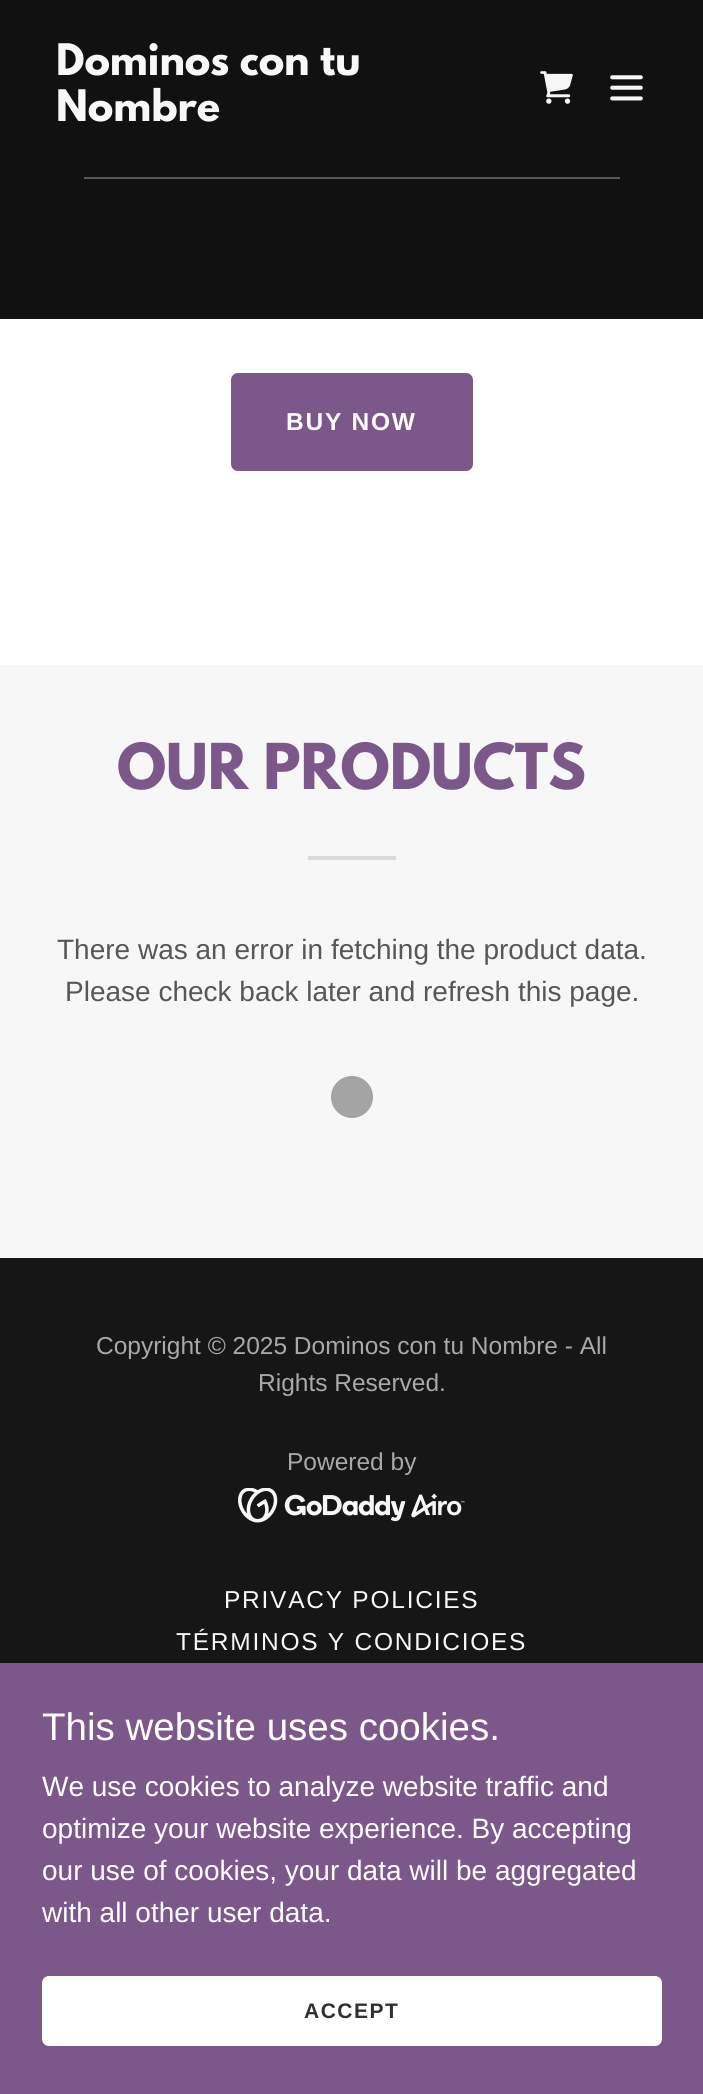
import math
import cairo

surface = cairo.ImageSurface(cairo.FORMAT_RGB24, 703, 2094)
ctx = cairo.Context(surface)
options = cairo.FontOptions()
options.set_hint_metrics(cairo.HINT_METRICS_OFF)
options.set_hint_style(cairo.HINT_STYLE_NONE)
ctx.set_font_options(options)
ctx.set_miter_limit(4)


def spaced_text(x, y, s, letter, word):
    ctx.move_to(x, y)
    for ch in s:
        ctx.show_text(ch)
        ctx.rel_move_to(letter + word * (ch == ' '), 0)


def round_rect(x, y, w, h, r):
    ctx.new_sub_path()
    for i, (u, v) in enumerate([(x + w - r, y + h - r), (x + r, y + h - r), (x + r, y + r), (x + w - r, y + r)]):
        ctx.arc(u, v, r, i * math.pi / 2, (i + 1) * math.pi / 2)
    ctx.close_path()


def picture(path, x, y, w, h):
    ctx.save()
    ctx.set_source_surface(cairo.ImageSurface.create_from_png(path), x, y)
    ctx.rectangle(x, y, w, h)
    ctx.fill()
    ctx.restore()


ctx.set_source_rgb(0.086, 0.086, 0.086)
ctx.paint()
ctx.set_source_rgb(0.067, 0.067, 0.067)
ctx.rectangle(0, 0, 703, 319)
ctx.fill()
ctx.select_font_face("League Spartan", cairo.FONT_SLANT_NORMAL, cairo.FONT_WEIGHT_BOLD)
ctx.set_font_size(38.5)
ctx.set_source_rgb(0.969, 0.969, 0.969)
ctx.move_to(56, 75)
ctx.show_text("Dominos con tu")
ctx.move_to(56, 121)
ctx.show_text("Nombre")
picture("img1.png", 540, 71, 33, 33)
picture("img2.png", 610, 75, 33, 26)
ctx.set_source_rgb(0.345, 0.345, 0.345)
ctx.rectangle(84, 177, 536, 2)
ctx.fill()
ctx.set_source_rgb(1, 1, 1)
ctx.rectangle(0, 319, 703, 346)
ctx.fill()
ctx.set_source_rgb(0.486, 0.341, 0.541)
round_rect(231, 373, 242, 98, 7)
ctx.fill()
ctx.select_font_face("Liberation Sans", cairo.FONT_SLANT_NORMAL, cairo.FONT_WEIGHT_BOLD)
ctx.set_font_size(24.5)
ctx.set_source_rgb(1, 1, 1)
spaced_text(286, 430, "BUY NOW", 1.75, 0)
ctx.set_source_rgb(0.965, 0.965, 0.965)
ctx.rectangle(0, 665, 703, 593)
ctx.fill()
ctx.select_font_face("League Spartan", cairo.FONT_SLANT_NORMAL, cairo.FONT_WEIGHT_BOLD)
ctx.set_font_size(56)
ctx.set_source_rgb(0.486, 0.341, 0.541)
ctx.move_to(117, 789)
ctx.show_text("OUR PRODUCTS")
ctx.set_source_rgb(0.855, 0.855, 0.855)
ctx.rectangle(308, 856, 88, 4)
ctx.fill()
ctx.select_font_face("Liberation Sans")
ctx.set_font_size(28)
ctx.set_source_rgb(0.341, 0.341, 0.341)
ctx.move_to(57, 959)
ctx.show_text("There was an error in fetching the product data.")
ctx.move_to(65, 1001)
ctx.show_text("Please check back later and refresh this page.")
ctx.set_source_rgb(0.643, 0.643, 0.643)
ctx.new_path()
ctx.arc(352, 1097, 21, 0, 2 * math.pi)
ctx.fill()
ctx.set_font_size(24.5)
ctx.set_source_rgb(0.663, 0.663, 0.663)
ctx.move_to(96, 1354)
ctx.show_text("Copyright © 2025 Dominos con tu Nombre - All")
ctx.move_to(258, 1391)
ctx.show_text("Rights Reserved.")
ctx.move_to(287, 1470)
ctx.show_text("Powered by")
picture("img3.png", 238, 1488, 227, 35)
ctx.set_source_rgb(0.969, 0.969, 0.969)
spaced_text(224, 1608, "PRIVACY POLICIES", 1.75, 0)
spaced_text(176, 1650, "TÉRMINOS Y CONDICIOES", 1.75, 0)
ctx.set_source_rgb(0.486, 0.341, 0.541)
ctx.rectangle(0, 1663, 703, 431)
ctx.fill()
ctx.set_font_size(38.5)
ctx.set_source_rgb(1, 1, 1)
ctx.move_to(42, 1740)
ctx.show_text("This website uses cookies.")
ctx.set_font_size(28)
ctx.move_to(42, 1796)
ctx.show_text("We use cookies to analyze website traffic and")
ctx.move_to(42, 1838)
ctx.show_text("optimize your website experience. By accepting")
ctx.move_to(42, 1880)
ctx.show_text("our use of cookies, your data will be aggregated")
ctx.move_to(42, 1922)
ctx.show_text("with all other user data.")
round_rect(42, 1976, 620, 70, 7)
ctx.fill()
ctx.select_font_face("Liberation Sans", cairo.FONT_SLANT_NORMAL, cairo.FONT_WEIGHT_BOLD)
ctx.set_font_size(21)
ctx.set_source_rgb(0.188, 0.188, 0.188)
spaced_text(304, 2018, "ACCEPT", 1.5, 0)
surface.write_to_png("page.png")
